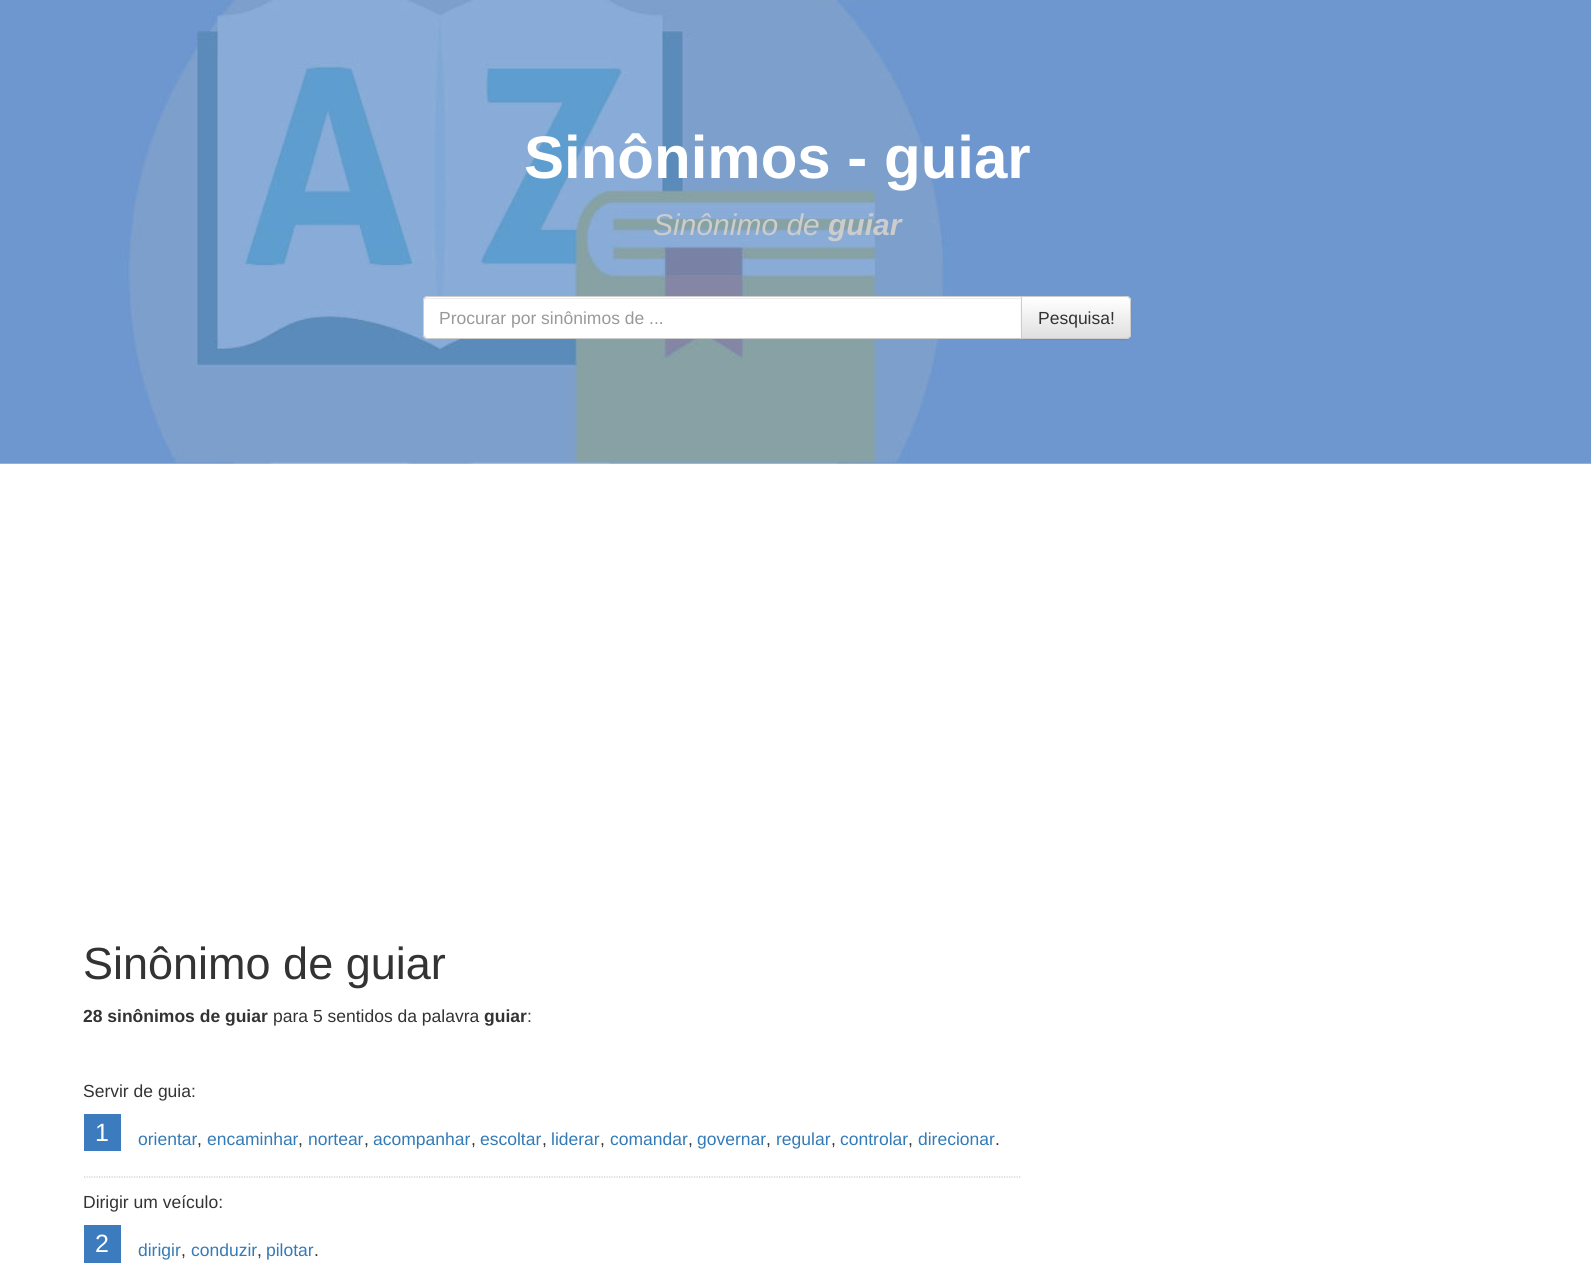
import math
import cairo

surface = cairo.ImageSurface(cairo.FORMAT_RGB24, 1591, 1268)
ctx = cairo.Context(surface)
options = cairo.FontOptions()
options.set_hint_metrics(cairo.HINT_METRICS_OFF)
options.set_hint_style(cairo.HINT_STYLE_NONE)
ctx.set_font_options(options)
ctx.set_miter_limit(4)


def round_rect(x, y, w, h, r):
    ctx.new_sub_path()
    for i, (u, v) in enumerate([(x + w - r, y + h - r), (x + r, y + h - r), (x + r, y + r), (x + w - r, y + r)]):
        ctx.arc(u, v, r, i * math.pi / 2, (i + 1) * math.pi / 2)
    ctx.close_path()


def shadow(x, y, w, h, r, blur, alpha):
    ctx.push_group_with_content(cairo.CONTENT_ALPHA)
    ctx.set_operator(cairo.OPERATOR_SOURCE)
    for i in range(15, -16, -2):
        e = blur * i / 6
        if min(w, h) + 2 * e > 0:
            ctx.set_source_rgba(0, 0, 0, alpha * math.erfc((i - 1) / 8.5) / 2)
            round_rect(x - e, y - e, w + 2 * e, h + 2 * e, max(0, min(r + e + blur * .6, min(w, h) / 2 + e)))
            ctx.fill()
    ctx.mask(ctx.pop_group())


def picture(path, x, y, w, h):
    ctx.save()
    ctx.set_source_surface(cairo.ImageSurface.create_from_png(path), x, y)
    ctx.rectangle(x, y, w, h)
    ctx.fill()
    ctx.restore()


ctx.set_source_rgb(1, 1, 1)
ctx.paint()
picture("img1.png", 0, 0, 1591, 464)
ctx.select_font_face("Liberation Sans", cairo.FONT_SLANT_NORMAL, cairo.FONT_WEIGHT_BOLD)
ctx.set_font_size(60)
ctx.set_source_rgb(1, 1, 1)
ctx.move_to(524, 178)
ctx.show_text("Sinônimos - guiar")
ctx.select_font_face("Liberation Sans", cairo.FONT_SLANT_ITALIC)
ctx.set_font_size(30)
ctx.set_source_rgb(0.8, 0.8, 0.8)
ctx.move_to(653, 235)
ctx.show_text("Sinônimo de")
ctx.select_font_face("Liberation Sans", cairo.FONT_SLANT_ITALIC, cairo.FONT_WEIGHT_BOLD)
ctx.move_to(828, 235)
ctx.show_text("guiar")
ctx.set_source_rgb(1, 1, 1)
ctx.new_path()
ctx.move_to(428, 296)
ctx.line_to(1023, 296)
ctx.line_to(1023, 339)
ctx.line_to(428, 339)
ctx.curve_to(425, 339, 423, 337, 423, 334)
ctx.line_to(423, 301)
ctx.curve_to(423, 298, 425, 296, 428, 296)
ctx.close_path()
ctx.fill()
ctx.set_source_rgb(0.925, 0.925, 0.925)
ctx.new_path()
ctx.move_to(428, 299)
ctx.line_to(1021, 299)
ctx.line_to(1021, 298)
ctx.line_to(428, 298)
ctx.curve_to(426, 298, 425, 299, 424, 300)
ctx.curve_to(425, 299, 426, 299, 428, 299)
ctx.close_path()
ctx.fill()
ctx.new_path()
ctx.move_to(428, 296.5)
ctx.line_to(1022.5, 296.5)
ctx.line_to(1022.5, 338.5)
ctx.line_to(428, 338.5)
ctx.curve_to(425.5, 338.5, 423.5, 336.5, 423.5, 334)
ctx.line_to(423.5, 301)
ctx.curve_to(423.5, 298.5, 425.5, 296.5, 428, 296.5)
ctx.close_path()
ctx.set_source_rgb(0.8, 0.8, 0.8)
ctx.set_line_width(1)
ctx.stroke()
ctx.select_font_face("Liberation Sans")
ctx.set_font_size(17.5)
ctx.set_source_rgb(0.6, 0.6, 0.6)
ctx.move_to(439, 324)
ctx.show_text("Procurar por sinônimos de ...")
ctx.set_source_rgb(0, 0, 0)
shadow(1021, 298, 110, 42, 5, 0.5, 0.07)
ctx.set_source_rgb(1, 1, 1)
ctx.new_path()
ctx.move_to(1021, 296)
ctx.line_to(1126, 296)
ctx.curve_to(1129, 296, 1131, 298, 1131, 301)
ctx.line_to(1131, 334)
ctx.curve_to(1131, 337, 1129, 339, 1126, 339)
ctx.line_to(1021, 339)
ctx.close_path()
ctx.fill()
ctx.save()
ctx.new_path()
ctx.move_to(1021, 296)
ctx.line_to(1126, 296)
ctx.curve_to(1129, 296, 1131, 298, 1131, 301)
ctx.line_to(1131, 334)
ctx.curve_to(1131, 337, 1129, 339, 1126, 339)
ctx.line_to(1021, 339)
ctx.close_path()
ctx.clip()
gradient = cairo.LinearGradient(1076, 298, 1076, 338)
gradient.add_color_stop_rgba(0, 1, 1, 1, 1)
gradient.add_color_stop_rgba(1, 0.878, 0.878, 0.878, 1)
ctx.set_source(gradient)
ctx.rectangle(1022, 298, 109, 40)
ctx.fill()
ctx.restore()
ctx.new_path()
ctx.move_to(1021.5, 296.5)
ctx.line_to(1126, 296.5)
ctx.curve_to(1128.5, 296.5, 1130.5, 298.5, 1130.5, 301)
ctx.line_to(1130.5, 334)
ctx.curve_to(1130.5, 336.5, 1128.5, 338.5, 1126, 338.5)
ctx.line_to(1021.5, 338.5)
ctx.close_path()
ctx.set_source_rgb(0.8, 0.8, 0.8)
ctx.stroke()
ctx.set_source_rgb(0.2, 0.2, 0.2)
ctx.move_to(1038, 324)
ctx.show_text("Pesquisa!")
ctx.set_font_size(45)
ctx.move_to(83, 979)
ctx.show_text("Sinônimo de guiar")
ctx.select_font_face("Liberation Sans", cairo.FONT_SLANT_NORMAL, cairo.FONT_WEIGHT_BOLD)
ctx.set_font_size(17.5)
ctx.move_to(83, 1022)
ctx.show_text("28 sinônimos de guiar")
ctx.select_font_face("Liberation Sans")
ctx.move_to(273, 1022)
ctx.show_text("para 5 sentidos da palavra")
ctx.select_font_face("Liberation Sans", cairo.FONT_SLANT_NORMAL, cairo.FONT_WEIGHT_BOLD)
ctx.move_to(484, 1022)
ctx.show_text("guiar")
ctx.select_font_face("Liberation Sans")
ctx.move_to(527, 1022)
ctx.show_text(":")
ctx.new_path()
ctx.move_to(84, 1177)
ctx.line_to(1021, 1177)
ctx.set_source_rgb(0.8, 0.8, 0.8)
ctx.set_line_width(1.2)
ctx.set_dash([1.25, 1.25])
ctx.stroke()
ctx.set_source_rgb(0.2, 0.2, 0.2)
ctx.move_to(83, 1097)
ctx.show_text("Servir de guia:")
ctx.set_source_rgb(0.235, 0.482, 0.745)
ctx.rectangle(84, 1114, 37, 37)
ctx.fill()
ctx.set_font_size(25)
ctx.set_source_rgb(1, 1, 1)
ctx.move_to(95, 1141)
ctx.show_text("1")
ctx.set_font_size(17.5)
ctx.set_source_rgb(0.2, 0.478, 0.718)
ctx.move_to(138, 1145)
ctx.show_text("orientar")
ctx.set_source_rgb(0.2, 0.2, 0.2)
ctx.move_to(197, 1145)
ctx.show_text(",")
ctx.set_source_rgb(0.2, 0.478, 0.718)
ctx.move_to(207, 1145)
ctx.show_text("encaminhar")
ctx.set_source_rgb(0.2, 0.2, 0.2)
ctx.move_to(298, 1145)
ctx.show_text(",")
ctx.set_source_rgb(0.2, 0.478, 0.718)
ctx.move_to(308, 1145)
ctx.show_text("nortear")
ctx.set_source_rgb(0.2, 0.2, 0.2)
ctx.move_to(364, 1145)
ctx.show_text(",")
ctx.set_source_rgb(0.2, 0.478, 0.718)
ctx.move_to(373, 1145)
ctx.show_text("acompanhar")
ctx.set_source_rgb(0.2, 0.2, 0.2)
ctx.move_to(471, 1145)
ctx.show_text(",")
ctx.set_source_rgb(0.2, 0.478, 0.718)
ctx.move_to(480, 1145)
ctx.show_text("escoltar")
ctx.set_source_rgb(0.2, 0.2, 0.2)
ctx.move_to(542, 1145)
ctx.show_text(",")
ctx.set_source_rgb(0.2, 0.478, 0.718)
ctx.move_to(551, 1145)
ctx.show_text("liderar")
ctx.set_source_rgb(0.2, 0.2, 0.2)
ctx.move_to(600, 1145)
ctx.show_text(",")
ctx.set_source_rgb(0.2, 0.478, 0.718)
ctx.move_to(610, 1145)
ctx.show_text("comandar")
ctx.set_source_rgb(0.2, 0.2, 0.2)
ctx.move_to(688, 1145)
ctx.show_text(",")
ctx.set_source_rgb(0.2, 0.478, 0.718)
ctx.move_to(697, 1145)
ctx.show_text("governar")
ctx.set_source_rgb(0.2, 0.2, 0.2)
ctx.move_to(766, 1145)
ctx.show_text(",")
ctx.set_source_rgb(0.2, 0.478, 0.718)
ctx.move_to(776, 1145)
ctx.show_text("regular")
ctx.set_source_rgb(0.2, 0.2, 0.2)
ctx.move_to(831, 1145)
ctx.show_text(",")
ctx.set_source_rgb(0.2, 0.478, 0.718)
ctx.move_to(840, 1145)
ctx.show_text("controlar")
ctx.set_source_rgb(0.2, 0.2, 0.2)
ctx.move_to(908, 1145)
ctx.show_text(",")
ctx.set_source_rgb(0.2, 0.478, 0.718)
ctx.move_to(918, 1145)
ctx.show_text("direcionar")
ctx.set_source_rgb(0.2, 0.2, 0.2)
ctx.move_to(995, 1145)
ctx.show_text(".")
ctx.move_to(83, 1208)
ctx.show_text("Dirigir um veículo:")
ctx.set_source_rgb(0.235, 0.482, 0.745)
ctx.rectangle(84, 1225, 37, 38)
ctx.fill()
ctx.set_font_size(25)
ctx.set_source_rgb(1, 1, 1)
ctx.move_to(95, 1252)
ctx.show_text("2")
ctx.set_font_size(17.5)
ctx.set_source_rgb(0.2, 0.478, 0.718)
ctx.move_to(138, 1256)
ctx.show_text("dirigir")
ctx.set_source_rgb(0.2, 0.2, 0.2)
ctx.move_to(181, 1256)
ctx.show_text(",")
ctx.set_source_rgb(0.2, 0.478, 0.718)
ctx.move_to(191, 1256)
ctx.show_text("conduzir")
ctx.set_source_rgb(0.2, 0.2, 0.2)
ctx.move_to(257, 1256)
ctx.show_text(",")
ctx.set_source_rgb(0.2, 0.478, 0.718)
ctx.move_to(266, 1256)
ctx.show_text("pilotar")
ctx.set_source_rgb(0.2, 0.2, 0.2)
ctx.move_to(314, 1256)
ctx.show_text(".")
surface.write_to_png("page.png")
